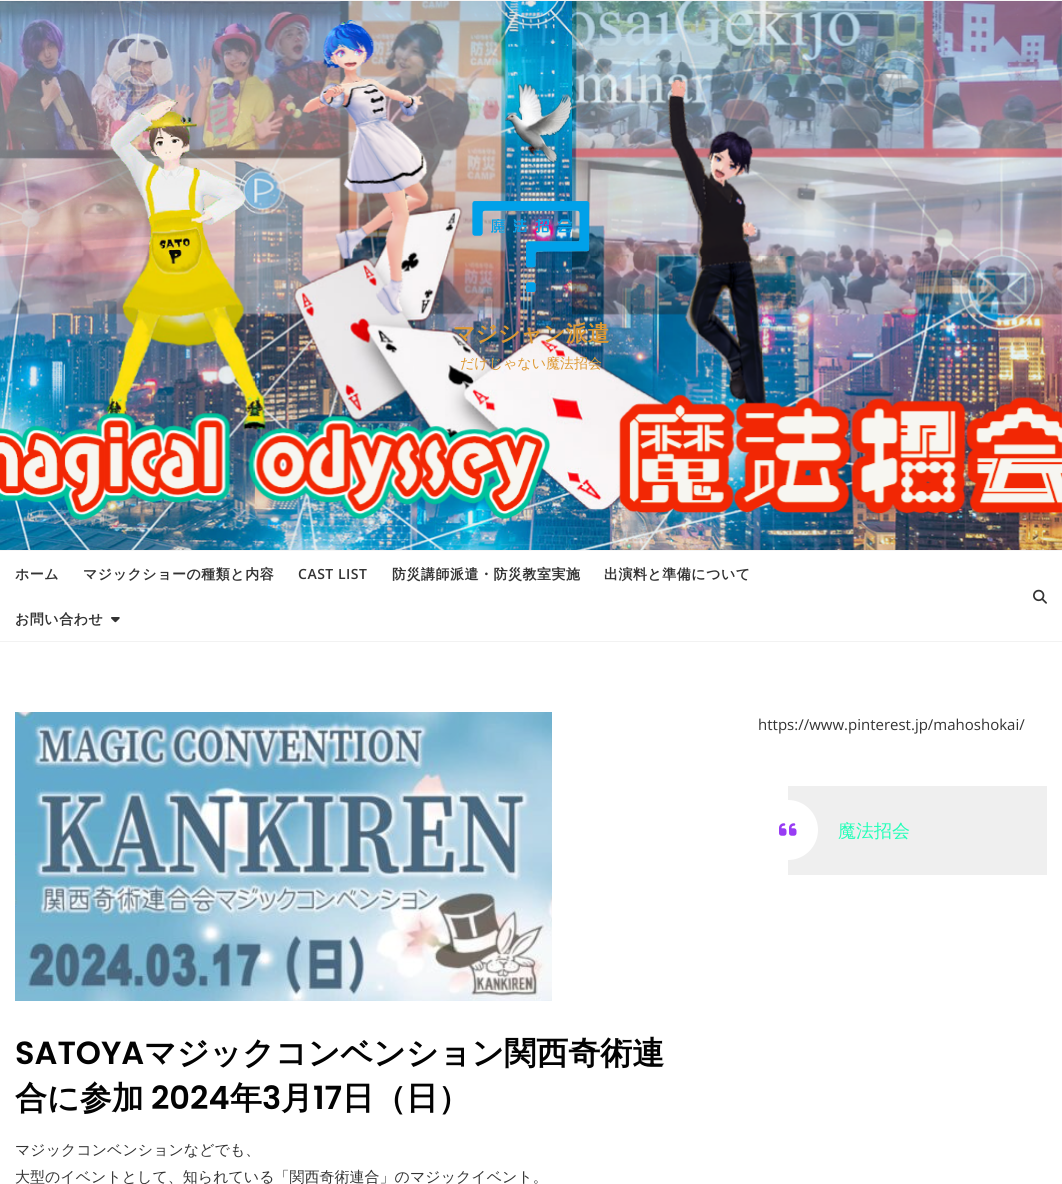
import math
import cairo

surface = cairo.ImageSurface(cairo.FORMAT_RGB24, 1062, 1184)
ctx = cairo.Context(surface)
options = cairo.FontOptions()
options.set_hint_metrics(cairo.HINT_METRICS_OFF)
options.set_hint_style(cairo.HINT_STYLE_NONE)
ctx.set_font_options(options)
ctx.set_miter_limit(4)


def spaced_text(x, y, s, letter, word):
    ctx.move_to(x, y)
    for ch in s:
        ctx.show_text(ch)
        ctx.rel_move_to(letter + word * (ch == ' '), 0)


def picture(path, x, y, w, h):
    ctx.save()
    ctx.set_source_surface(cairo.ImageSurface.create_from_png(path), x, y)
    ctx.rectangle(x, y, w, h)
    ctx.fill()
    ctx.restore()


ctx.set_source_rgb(1, 1, 1)
ctx.paint()
ctx.set_source_rgb(0.961, 0.961, 0.961)
ctx.rectangle(0, 0, 1062, 1)
ctx.fill()
ctx.rectangle(0, 550, 1062, 1)
ctx.fill()
picture("img1.png", 0, 1, 1062, 549)
picture("img2.png", 472, 201, 118, 92)
ctx.select_font_face("WenQuanYi Zen Hei", cairo.FONT_SLANT_NORMAL, cairo.FONT_WEIGHT_BOLD)
ctx.set_font_size(22)
ctx.set_source_rgb(0.867, 0.6, 0.2)
ctx.move_to(453, 341)
ctx.show_text("マジシャン派遣")
ctx.select_font_face("WenQuanYi Zen Hei Medium")
ctx.set_font_size(14)
ctx.move_to(460, 368)
ctx.show_text("だけじゃない魔法招会")
ctx.select_font_face("WenQuanYi Zen Hei", cairo.FONT_SLANT_NORMAL, cairo.FONT_WEIGHT_BOLD)
ctx.set_source_rgb(0.2, 0.2, 0.2)
spaced_text(15, 579, "ホーム", 0.5, 0)
spaced_text(83, 579, "マジックショーの種類と内容", 0.5, 0)
ctx.select_font_face("Open Sans SemiBold")
spaced_text(298, 579, "CAST LIST", 0.5, 0)
ctx.select_font_face("WenQuanYi Zen Hei", cairo.FONT_SLANT_NORMAL, cairo.FONT_WEIGHT_BOLD)
spaced_text(392, 579, "防災講師派遣・防災教室実施", 0.5, 0)
spaced_text(604, 579, "出演料と準備について", 0.5, 0)
spaced_text(15, 624, "お問い合わせ", 0.5, 0)
picture("img3.png", 111, 617, 9, 6)
picture("img4.png", 1033, 589, 14, 15)
ctx.set_source_rgb(0.949, 0.949, 0.949)
ctx.rectangle(0, 641, 1062, 1)
ctx.fill()
ctx.select_font_face("Open Sans")
ctx.set_font_size(15)
ctx.set_source_rgb(0.2, 0.2, 0.2)
ctx.move_to(758, 730)
ctx.show_text("https://www.pinterest.jp/mahoshokai/")
ctx.set_source_rgb(0.937, 0.937, 0.937)
ctx.rectangle(788, 786, 259, 89)
ctx.fill()
ctx.set_source_rgb(1, 1, 1)
ctx.arc(788, 830, 30, 0, 2 * math.pi)
ctx.fill()
picture("img5.png", 779, 823, 18, 13)
ctx.select_font_face("WenQuanYi Zen Hei Medium")
ctx.set_font_size(18)
ctx.set_source_rgb(0.133, 1, 0.722)
ctx.move_to(838, 837)
ctx.show_text("魔法招会")
picture("img6.png", 15, 712, 537, 289)
ctx.select_font_face("Poppins SemiBold")
ctx.set_font_size(32)
ctx.set_source_rgb(0.012, 0.012, 0.012)
ctx.move_to(15, 1064)
ctx.show_text("SATOYA")
ctx.select_font_face("WenQuanYi Zen Hei", cairo.FONT_SLANT_NORMAL, cairo.FONT_WEIGHT_BOLD)
ctx.move_to(144, 1064)
ctx.show_text("マジックコンベンション関西奇術連")
ctx.move_to(15, 1109)
ctx.show_text("合に参加")
ctx.select_font_face("Poppins SemiBold")
ctx.move_to(151, 1109)
ctx.show_text("2024")
ctx.select_font_face("WenQuanYi Zen Hei", cairo.FONT_SLANT_NORMAL, cairo.FONT_WEIGHT_BOLD)
ctx.move_to(230, 1109)
ctx.show_text("年")
ctx.select_font_face("Poppins SemiBold")
ctx.move_to(262, 1109)
ctx.show_text("3")
ctx.select_font_face("WenQuanYi Zen Hei", cairo.FONT_SLANT_NORMAL, cairo.FONT_WEIGHT_BOLD)
ctx.move_to(281, 1109)
ctx.show_text("月")
ctx.select_font_face("Poppins SemiBold")
ctx.move_to(313, 1109)
ctx.show_text("17")
ctx.select_font_face("WenQuanYi Zen Hei", cairo.FONT_SLANT_NORMAL, cairo.FONT_WEIGHT_BOLD)
ctx.move_to(342, 1109)
ctx.show_text("日（日）")
ctx.select_font_face("WenQuanYi Zen Hei Medium")
ctx.set_font_size(15)
ctx.set_source_rgb(0.2, 0.2, 0.2)
ctx.move_to(15, 1155)
ctx.show_text("マジックコンベンションなどでも、")
ctx.move_to(15, 1182)
ctx.show_text("大型のイベントとして、知られている「関西奇術連合」のマジックイベント。")
surface.write_to_png("page.png")
